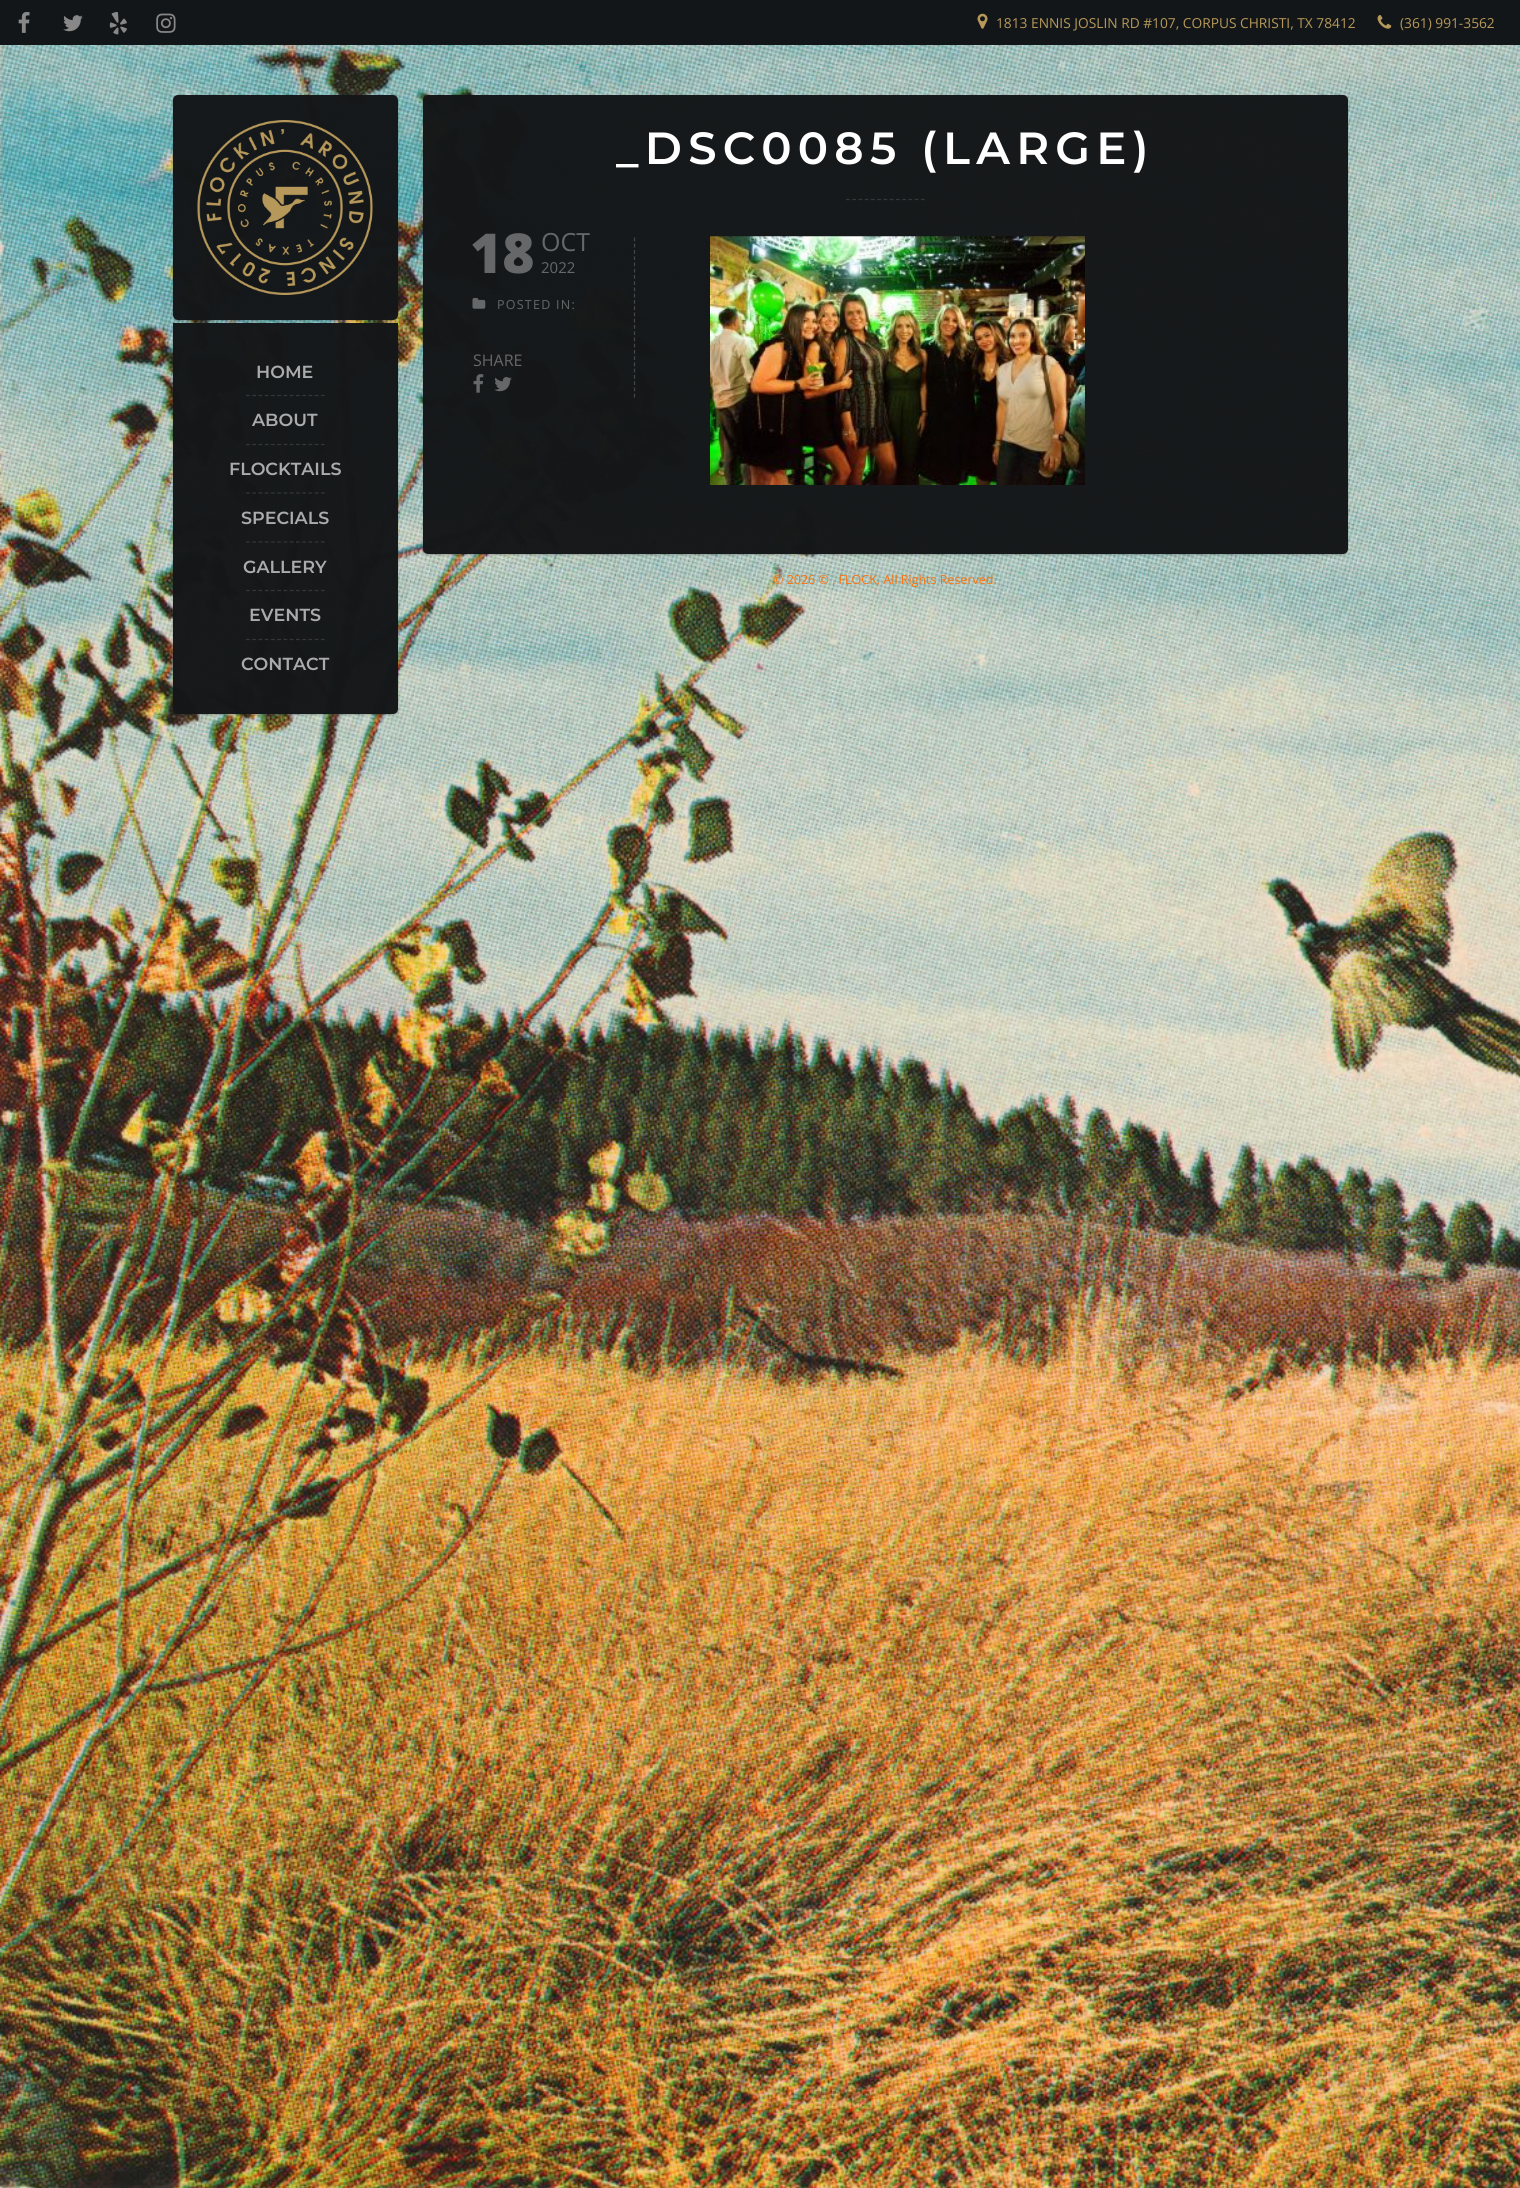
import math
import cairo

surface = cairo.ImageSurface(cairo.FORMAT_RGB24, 1520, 2188)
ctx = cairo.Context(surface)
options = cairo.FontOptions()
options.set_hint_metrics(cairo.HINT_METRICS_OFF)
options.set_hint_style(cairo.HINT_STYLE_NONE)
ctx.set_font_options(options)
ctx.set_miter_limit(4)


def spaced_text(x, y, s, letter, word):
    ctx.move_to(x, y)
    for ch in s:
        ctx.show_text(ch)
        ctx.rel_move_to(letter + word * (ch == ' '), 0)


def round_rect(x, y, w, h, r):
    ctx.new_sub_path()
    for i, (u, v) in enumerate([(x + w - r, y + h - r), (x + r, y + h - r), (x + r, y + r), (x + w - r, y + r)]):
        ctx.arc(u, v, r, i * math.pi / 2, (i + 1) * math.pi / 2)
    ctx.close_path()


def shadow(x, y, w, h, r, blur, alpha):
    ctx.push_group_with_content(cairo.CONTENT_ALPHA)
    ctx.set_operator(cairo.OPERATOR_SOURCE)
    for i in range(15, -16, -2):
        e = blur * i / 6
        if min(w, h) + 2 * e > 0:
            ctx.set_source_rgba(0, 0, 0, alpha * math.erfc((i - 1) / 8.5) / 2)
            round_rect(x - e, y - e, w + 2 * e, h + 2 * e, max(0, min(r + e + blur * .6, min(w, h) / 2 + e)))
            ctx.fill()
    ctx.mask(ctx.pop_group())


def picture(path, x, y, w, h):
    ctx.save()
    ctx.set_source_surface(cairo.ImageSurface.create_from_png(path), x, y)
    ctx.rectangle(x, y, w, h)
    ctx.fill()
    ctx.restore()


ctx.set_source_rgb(1, 1, 1)
ctx.paint()
picture("img1.png", 0, 45, 1520, 2143)
ctx.set_source_rgb(0.078, 0.086, 0.094)
ctx.rectangle(0, 0, 1520, 45)
ctx.fill()
picture("img2.png", 18, 12, 12, 21)
picture("img3.png", 63, 15, 20, 17)
picture("img4.png", 109, 12, 18, 23)
picture("img5.png", 156, 13, 20, 20)
picture("img6.png", 977, 13, 11, 16)
ctx.select_font_face("Open Sans")
ctx.set_font_size(13.75)
ctx.set_source_rgb(0.71, 0.596, 0.353)
ctx.move_to(996, 28)
ctx.show_text("1813 ENNIS JOSLIN RD #107, CORPUS CHRISTI, TX 78412")
picture("img7.png", 1377, 15, 15, 14)
ctx.move_to(1400, 28)
ctx.show_text("(361) 991-3562")
ctx.save()
ctx.set_fill_rule(cairo.FILL_RULE_EVEN_ODD)
ctx.new_path()
ctx.move_to(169, 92)
ctx.line_to(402, 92)
ctx.line_to(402, 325)
ctx.line_to(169, 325)
ctx.close_path()
ctx.move_to(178, 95)
ctx.line_to(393, 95)
ctx.curve_to(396, 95, 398, 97, 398, 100)
ctx.line_to(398, 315)
ctx.curve_to(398, 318, 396, 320, 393, 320)
ctx.line_to(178, 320)
ctx.curve_to(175, 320, 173, 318, 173, 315)
ctx.line_to(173, 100)
ctx.curve_to(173, 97, 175, 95, 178, 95)
ctx.close_path()
ctx.clip()
ctx.set_source_rgb(0.039, 0.078, 0.078)
shadow(173, 96, 225, 225, 5, 1, 0.28)
ctx.restore()
ctx.set_source_rgba(0.078, 0.086, 0.094, 0.98)
round_rect(173, 95, 225, 225, 5)
ctx.fill()
picture("img8.png", 197, 120, 176, 175)
ctx.save()
ctx.set_fill_rule(cairo.FILL_RULE_EVEN_ODD)
ctx.new_path()
ctx.move_to(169, 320)
ctx.line_to(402, 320)
ctx.line_to(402, 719)
ctx.line_to(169, 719)
ctx.close_path()
ctx.move_to(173, 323)
ctx.line_to(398, 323)
ctx.line_to(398, 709)
ctx.curve_to(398, 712, 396, 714, 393, 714)
ctx.line_to(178, 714)
ctx.curve_to(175, 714, 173, 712, 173, 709)
ctx.close_path()
ctx.clip()
ctx.set_source_rgb(0.039, 0.078, 0.078)
shadow(173, 324, 225, 391, 5, 1, 0.28)
ctx.restore()
ctx.new_path()
ctx.move_to(173, 323)
ctx.line_to(398, 323)
ctx.line_to(398, 709)
ctx.curve_to(398, 712, 396, 714, 393, 714)
ctx.line_to(178, 714)
ctx.curve_to(175, 714, 173, 712, 173, 709)
ctx.close_path()
ctx.fill()
ctx.select_font_face("Montserrat SemiBold")
ctx.set_font_size(17.5)
ctx.set_source_rgb(0.667, 0.671, 0.675)
ctx.move_to(256, 378)
ctx.show_text("HOME")
ctx.new_path()
ctx.move_to(246, 395.5)
ctx.line_to(325, 395.5)
ctx.set_source_rgb(0.204, 0.212, 0.22)
ctx.set_line_width(1.2)
ctx.set_dash([3.75, 2.5])
ctx.stroke()
ctx.set_source_rgb(0.667, 0.671, 0.675)
ctx.move_to(252, 426)
ctx.show_text("ABOUT")
ctx.new_path()
ctx.move_to(246, 444.5)
ctx.line_to(325, 444.5)
ctx.set_source_rgb(0.204, 0.212, 0.22)
ctx.stroke()
ctx.set_source_rgb(0.667, 0.671, 0.675)
ctx.move_to(229, 475)
ctx.show_text("FLOCKTAILS")
ctx.new_path()
ctx.move_to(246, 493)
ctx.line_to(325, 493)
ctx.set_source_rgb(0.204, 0.212, 0.22)
ctx.stroke()
ctx.set_source_rgb(0.667, 0.671, 0.675)
ctx.move_to(241, 524)
ctx.show_text("SPECIALS")
ctx.new_path()
ctx.move_to(246, 542)
ctx.line_to(325, 542)
ctx.set_source_rgb(0.204, 0.212, 0.22)
ctx.stroke()
ctx.set_source_rgb(0.667, 0.671, 0.675)
ctx.move_to(243, 573)
ctx.show_text("GALLERY")
ctx.new_path()
ctx.move_to(246, 590.5)
ctx.line_to(325, 590.5)
ctx.set_source_rgb(0.204, 0.212, 0.22)
ctx.stroke()
ctx.set_source_rgb(0.667, 0.671, 0.675)
ctx.move_to(249, 621)
ctx.show_text("EVENTS")
ctx.new_path()
ctx.move_to(246, 639.5)
ctx.line_to(325, 639.5)
ctx.set_source_rgb(0.204, 0.212, 0.22)
ctx.stroke()
ctx.set_source_rgb(0.667, 0.671, 0.675)
ctx.move_to(241, 670)
ctx.show_text("CONTACT")
ctx.save()
ctx.set_fill_rule(cairo.FILL_RULE_EVEN_ODD)
ctx.new_path()
ctx.move_to(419, 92)
ctx.line_to(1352, 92)
ctx.line_to(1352, 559)
ctx.line_to(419, 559)
ctx.close_path()
ctx.move_to(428, 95)
ctx.line_to(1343, 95)
ctx.curve_to(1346, 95, 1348, 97, 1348, 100)
ctx.line_to(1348, 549)
ctx.curve_to(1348, 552, 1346, 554, 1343, 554)
ctx.line_to(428, 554)
ctx.curve_to(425, 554, 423, 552, 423, 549)
ctx.line_to(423, 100)
ctx.curve_to(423, 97, 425, 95, 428, 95)
ctx.close_path()
ctx.clip()
ctx.set_source_rgb(0.039, 0.078, 0.078)
shadow(423, 96, 925, 459, 5, 1, 0.28)
ctx.restore()
ctx.set_source_rgba(0.078, 0.086, 0.094, 0.98)
round_rect(423, 95, 925, 459, 5)
ctx.fill()
ctx.set_font_size(45)
ctx.set_source_rgb(1, 1, 1)
spaced_text(616, 164, "_DSC0085 (LARGE)", 6.25, 0)
ctx.new_path()
ctx.move_to(846, 199.5)
ctx.line_to(925, 199.5)
ctx.set_source_rgb(0.204, 0.212, 0.22)
ctx.stroke()
ctx.new_path()
ctx.move_to(634.5, 237.5)
ctx.line_to(634.5, 397.5)
ctx.set_source_rgb(0.267, 0.275, 0.282)
ctx.stroke()
ctx.select_font_face("Open Sans ExtraBold")
ctx.set_font_size(55)
ctx.set_source_rgb(0.4, 0.404, 0.408)
ctx.move_to(470, 273)
ctx.show_text("18")
ctx.select_font_face("Open Sans")
ctx.set_font_size(25)
ctx.move_to(541, 251)
ctx.show_text("OCT")
ctx.set_font_size(15)
ctx.move_to(541, 273)
ctx.show_text("2022")
picture("img9.png", 472, 297, 14, 12)
ctx.set_font_size(12.5)
spaced_text(497, 309, "POSTED IN:", 1.25, 0)
ctx.set_font_size(16)
ctx.move_to(473, 366)
ctx.show_text("SHARE")
picture("img10.png", 473, 374, 11, 19)
picture("img11.png", 494, 377, 18, 15)
picture("img12.png", 710, 236, 375, 249)
ctx.set_font_size(12.5)
ctx.set_source_rgb(0.98, 0.447, 0.039)
ctx.move_to(773, 584)
ctx.show_text("© 2026 © , FLOCK, All Rights Reserved.")
surface.write_to_png("page.png")
